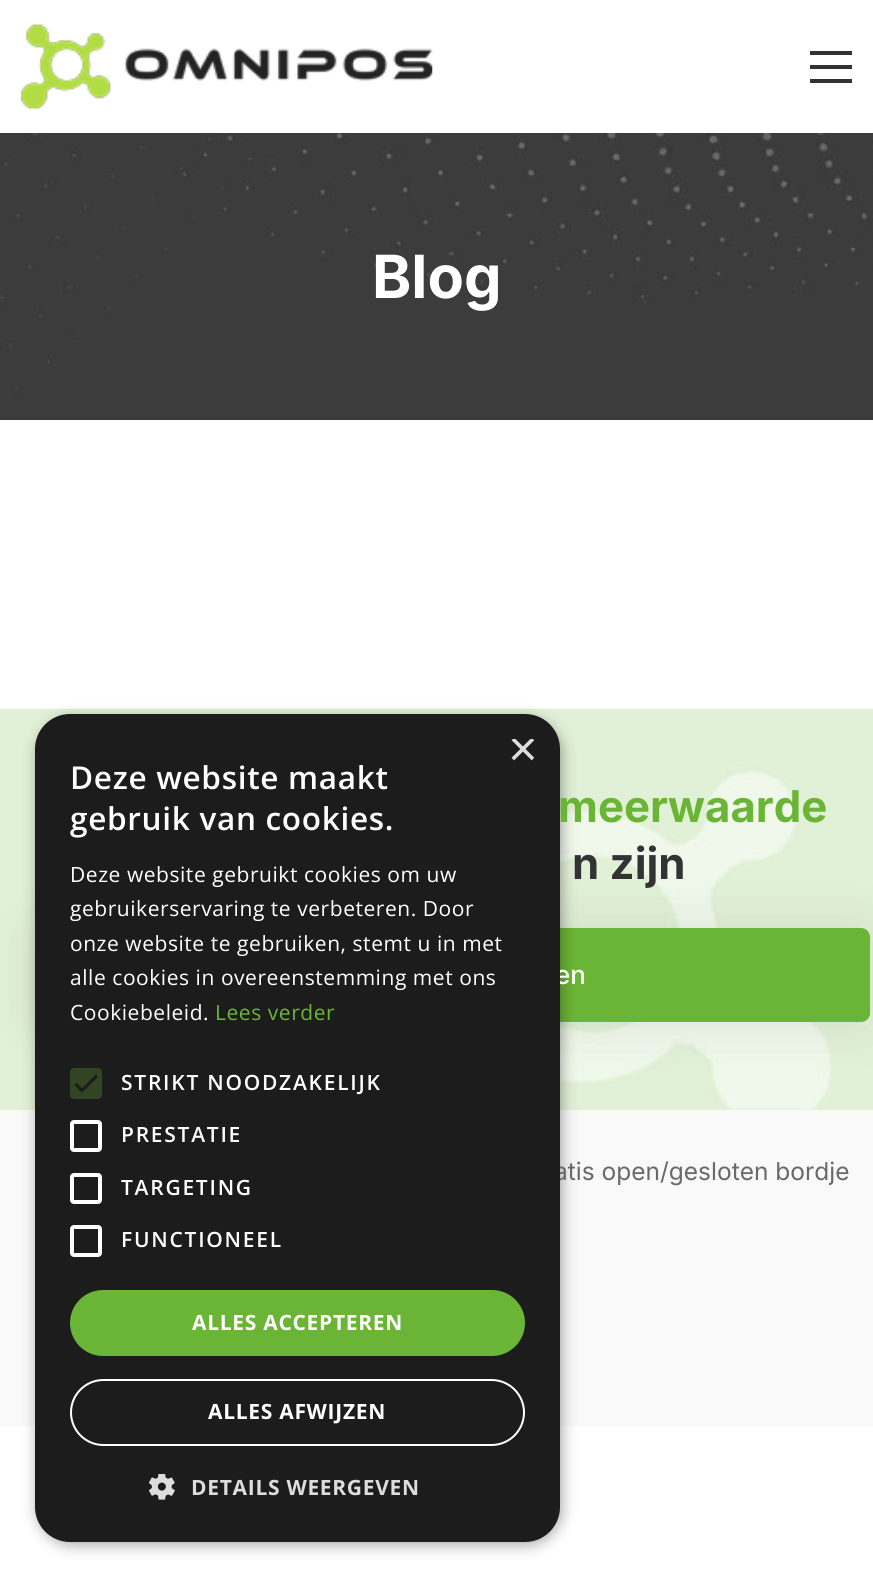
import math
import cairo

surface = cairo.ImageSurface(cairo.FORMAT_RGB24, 873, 1576)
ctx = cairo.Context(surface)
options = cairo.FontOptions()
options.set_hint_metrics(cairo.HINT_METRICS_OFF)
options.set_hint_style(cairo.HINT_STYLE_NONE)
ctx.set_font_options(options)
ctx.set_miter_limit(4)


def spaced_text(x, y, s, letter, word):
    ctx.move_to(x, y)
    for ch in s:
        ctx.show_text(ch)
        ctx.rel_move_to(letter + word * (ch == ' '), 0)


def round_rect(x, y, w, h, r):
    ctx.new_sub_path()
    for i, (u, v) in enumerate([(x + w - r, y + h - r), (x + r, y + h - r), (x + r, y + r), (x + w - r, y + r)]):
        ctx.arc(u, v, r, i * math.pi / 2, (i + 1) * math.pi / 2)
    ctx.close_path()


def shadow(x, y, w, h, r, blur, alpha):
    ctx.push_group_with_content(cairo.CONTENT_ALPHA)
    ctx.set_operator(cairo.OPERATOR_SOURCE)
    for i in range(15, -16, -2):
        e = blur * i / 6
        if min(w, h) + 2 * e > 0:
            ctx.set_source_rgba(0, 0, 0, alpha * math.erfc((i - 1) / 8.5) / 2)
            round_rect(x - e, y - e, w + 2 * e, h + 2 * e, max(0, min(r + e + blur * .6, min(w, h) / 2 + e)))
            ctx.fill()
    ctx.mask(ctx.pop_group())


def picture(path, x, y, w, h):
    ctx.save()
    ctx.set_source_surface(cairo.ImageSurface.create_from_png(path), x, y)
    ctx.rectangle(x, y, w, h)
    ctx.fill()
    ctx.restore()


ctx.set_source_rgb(1, 1, 1)
ctx.paint()
picture("img1.png", 21, 24, 412, 85)
ctx.set_source_rgb(0.2, 0.2, 0.2)
ctx.rectangle(810, 65, 42, 4)
ctx.fill()
ctx.rectangle(810, 51, 42, 4)
ctx.fill()
ctx.rectangle(810, 79, 42, 4)
ctx.fill()
ctx.set_source_rgb(0.882, 0.941, 0.843)
ctx.rectangle(0, 1109, 873, 1)
ctx.fill()
picture("img4.png", 0, 708, 873, 402)
ctx.set_source_rgb(0, 0, 0)
shadow(30, 919, 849, 112, 18, 26, 0.07)
ctx.set_source_rgb(0.42, 0.71, 0.212)
round_rect(39, 928, 831, 94, 9)
ctx.fill()
ctx.set_source_rgb(0.973, 0.973, 0.973)
ctx.rectangle(0, 1110, 873, 316)
ctx.fill()
ctx.set_source_rgb(0, 0, 0)
shadow(37, 718, 525, 827, 35, 7, 0.35)
ctx.select_font_face("Inter Medium")
ctx.set_font_size(26)
ctx.set_source_rgb(1, 1, 1)
ctx.move_to(555, 984)
ctx.show_text("en")
ctx.select_font_face("Inter")
ctx.set_font_size(24.5)
ctx.set_source_rgb(0.412, 0.412, 0.412)
ctx.move_to(554, 1180)
ctx.show_text("atis open/gesloten bordje")
ctx.set_source_rgb(0.11, 0.11, 0.11)
round_rect(35, 714, 525, 828, 35)
ctx.fill()
ctx.save()
ctx.rectangle(508, 739, 26, 26)
ctx.clip()
ctx.select_font_face("Liberation Sans")
ctx.set_font_size(51)
ctx.set_source_rgb(0.867, 0.867, 0.867)
ctx.move_to(508, 766)
ctx.show_text("×")
ctx.restore()
ctx.select_font_face("Open Sans SemiBold")
ctx.set_font_size(31.5)
ctx.set_source_rgb(1, 1, 1)
spaced_text(70, 789, "Deze website maakt", 0.7, 0)
spaced_text(70, 830, "gebruik van cookies.", 0.7, 0)
ctx.select_font_face("Open Sans")
ctx.set_font_size(21)
spaced_text(70, 882, "Deze website gebruikt cookies om uw", 0.55, 0)
spaced_text(70, 916, "gebruikerservaring te verbeteren. Door", 0.55, 0)
spaced_text(70, 951, "onze website te gebruiken, stemt u in met", 0.55, 0)
spaced_text(70, 985, "alle cookies in overeenstemming met ons", 0.55, 0)
spaced_text(70, 1020, "Cookiebeleid.", 0.55, 0)
ctx.set_source_rgb(0.42, 0.71, 0.212)
spaced_text(215, 1020, "Lees verder", 0.55, 0)
ctx.set_source_rgb(0.192, 0.267, 0.137)
round_rect(70, 1068, 32, 31, 4)
ctx.fill()
ctx.new_path()
ctx.move_to(75.5, 1084)
ctx.line_to(82, 1090.5)
ctx.line_to(97, 1075.5)
ctx.set_source_rgb(0.11, 0.11, 0.11)
ctx.set_line_width(3.2)
ctx.stroke()
ctx.select_font_face("Open Sans SemiBold")
ctx.set_source_rgb(1, 1, 1)
spaced_text(121, 1090, "STRIKT NOODZAKELIJK", 1.75, 0)
round_rect(72, 1122, 28, 28, 2)
ctx.set_line_width(4)
ctx.stroke()
spaced_text(121, 1142, "PRESTATIE", 1.75, 0)
round_rect(72, 1175, 28, 27, 2)
ctx.stroke()
spaced_text(121, 1195, "TARGETING", 1.75, 0)
round_rect(72, 1227, 28, 28, 2)
ctx.stroke()
spaced_text(121, 1247, "FUNCTIONEEL", 1.75, 0)
ctx.set_source_rgb(0.42, 0.71, 0.212)
round_rect(70, 1290, 455, 66, 33)
ctx.fill()
ctx.select_font_face("Open Sans", cairo.FONT_SLANT_NORMAL, cairo.FONT_WEIGHT_BOLD)
ctx.set_source_rgb(1, 1, 1)
spaced_text(192, 1330, "ALLES ACCEPTEREN", 0.7, 0)
round_rect(71, 1380, 453, 65, 32.5)
ctx.set_line_width(2)
ctx.stroke()
spaced_text(208, 1419, "ALLES AFWIJZEN", 0.7, 0)
picture("img2.png", 149, 1474, 26, 26)
ctx.set_source_rgb(0.867, 0.867, 0.867)
spaced_text(191, 1495, "DETAILS WEERGEVEN", 0.7, 0)
picture("img3.png", 0, 133, 873, 287)
ctx.select_font_face("Inter", cairo.FONT_SLANT_NORMAL, cairo.FONT_WEIGHT_BOLD)
ctx.set_font_size(59.5)
ctx.set_source_rgb(1, 1, 1)
ctx.move_to(372, 298)
ctx.show_text("Blog")
ctx.set_font_size(43.75)
ctx.set_source_rgb(0.42, 0.71, 0.212)
ctx.move_to(558, 822)
ctx.show_text("meerwaarde")
ctx.set_source_rgb(0.2, 0.2, 0.2)
ctx.move_to(572, 879)
ctx.show_text("n zijn")
surface.write_to_png("page.png")
